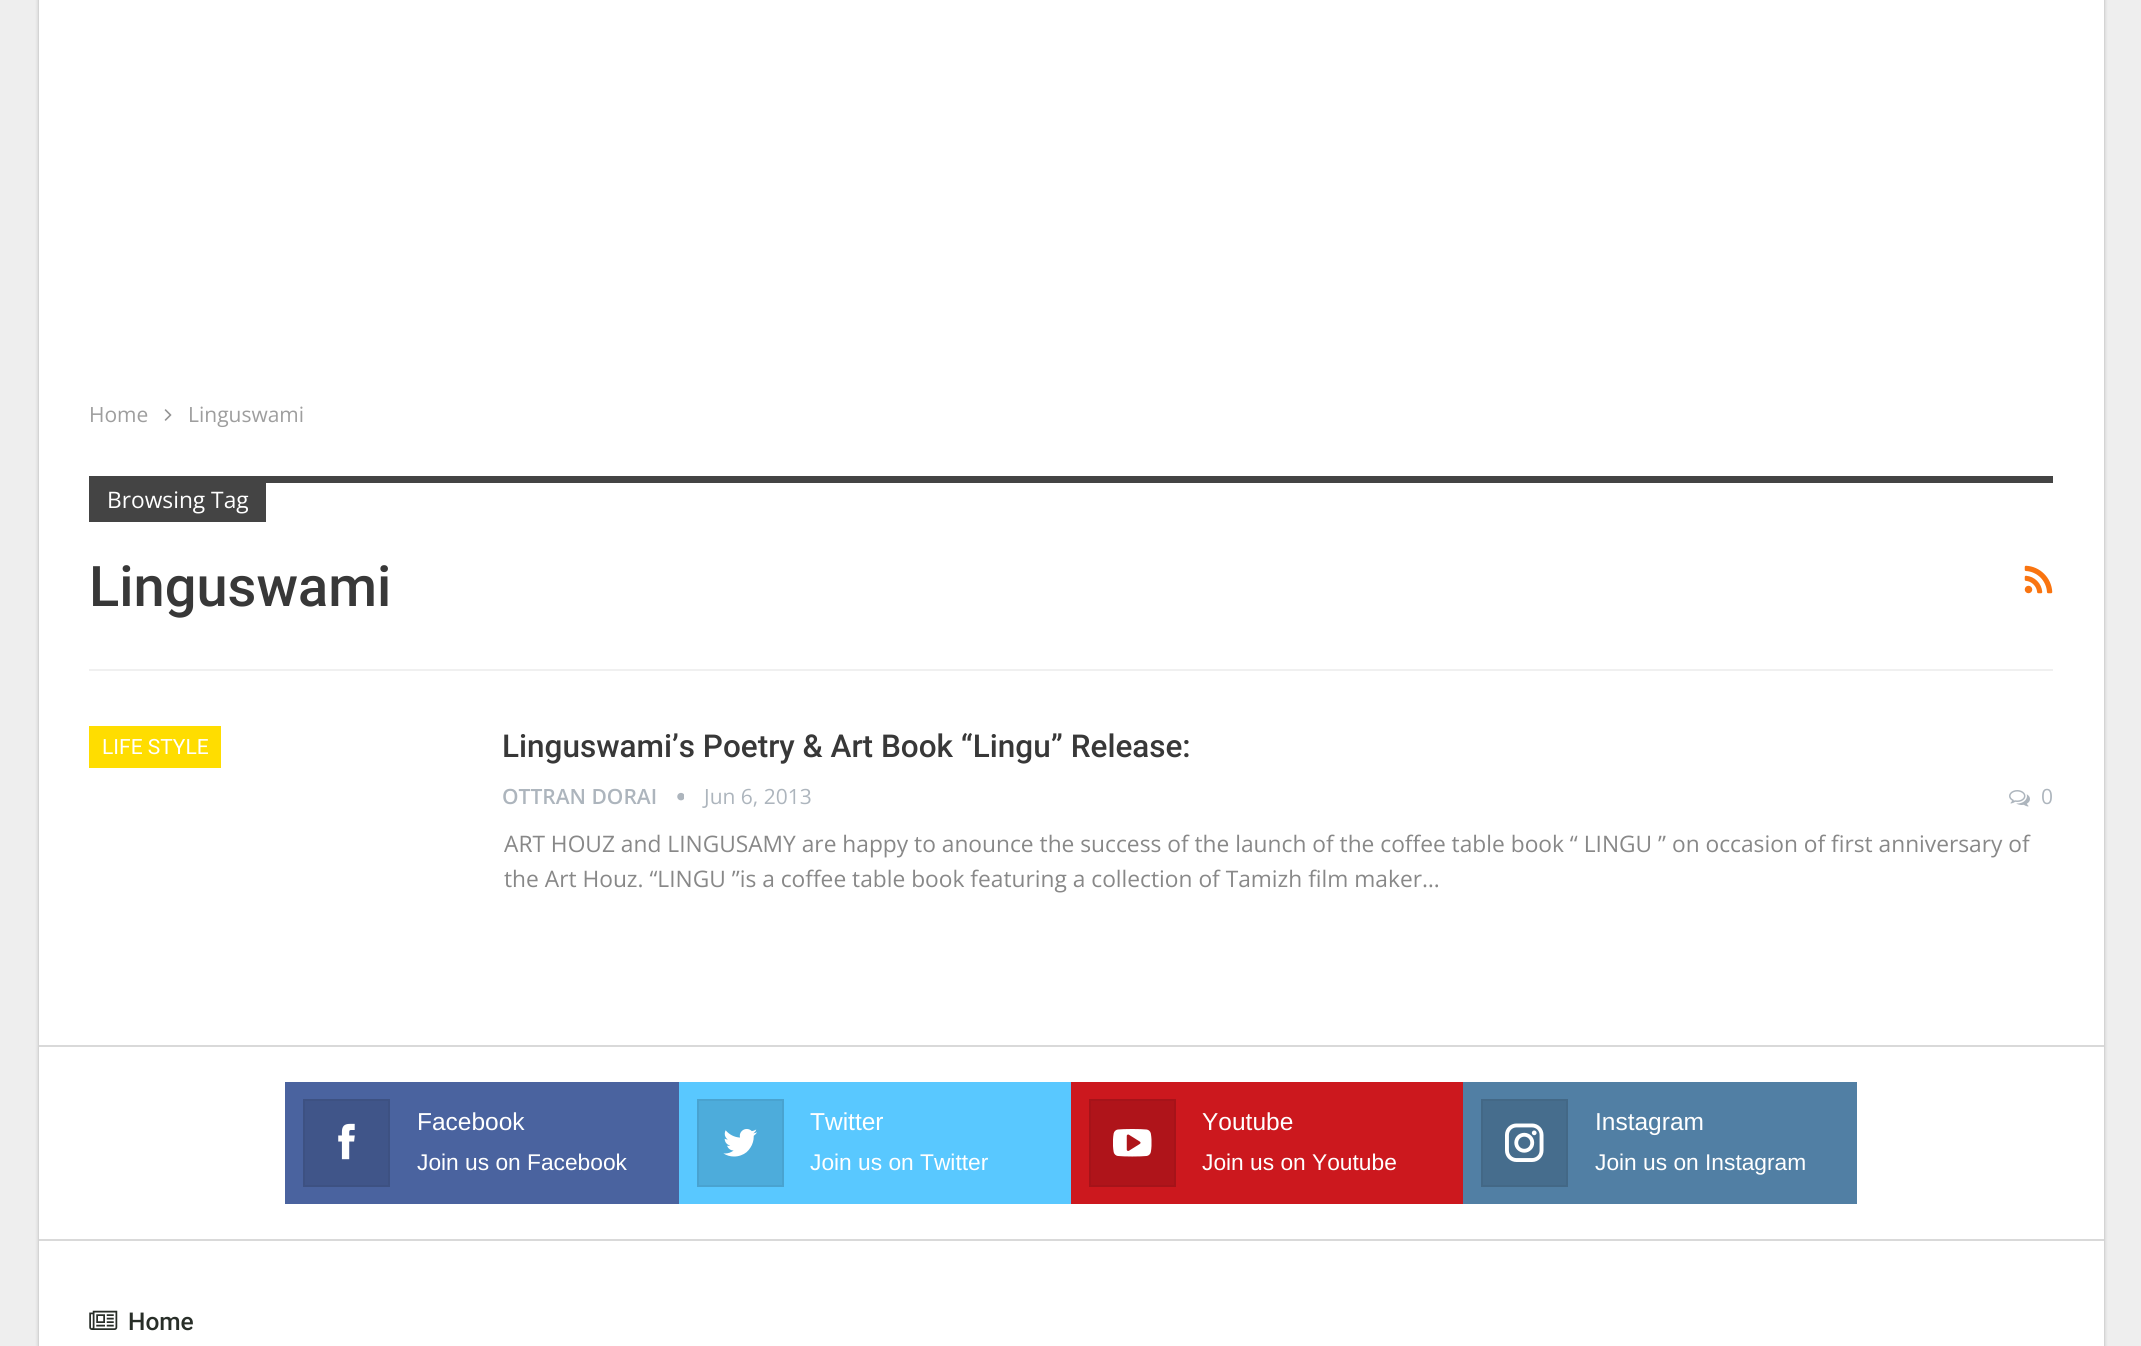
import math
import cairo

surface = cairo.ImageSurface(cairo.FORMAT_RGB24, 2141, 1346)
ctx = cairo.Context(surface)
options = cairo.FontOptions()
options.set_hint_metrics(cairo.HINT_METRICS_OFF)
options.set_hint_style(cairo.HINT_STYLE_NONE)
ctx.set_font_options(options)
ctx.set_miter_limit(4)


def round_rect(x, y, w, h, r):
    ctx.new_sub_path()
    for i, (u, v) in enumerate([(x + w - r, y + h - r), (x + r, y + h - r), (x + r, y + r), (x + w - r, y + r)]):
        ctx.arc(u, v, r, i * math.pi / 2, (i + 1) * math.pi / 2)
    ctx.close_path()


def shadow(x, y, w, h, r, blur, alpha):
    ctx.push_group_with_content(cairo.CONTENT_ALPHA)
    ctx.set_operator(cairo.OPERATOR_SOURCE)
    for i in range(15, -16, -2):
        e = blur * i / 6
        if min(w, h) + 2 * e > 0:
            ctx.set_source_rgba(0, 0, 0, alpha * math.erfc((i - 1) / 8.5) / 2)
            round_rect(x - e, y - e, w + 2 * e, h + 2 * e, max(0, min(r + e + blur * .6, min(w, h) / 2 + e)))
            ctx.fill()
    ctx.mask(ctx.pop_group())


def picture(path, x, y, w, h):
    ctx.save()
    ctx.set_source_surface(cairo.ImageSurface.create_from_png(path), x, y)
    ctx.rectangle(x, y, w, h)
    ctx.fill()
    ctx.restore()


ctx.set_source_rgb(0.933, 0.933, 0.933)
ctx.paint()
ctx.set_source_rgb(0, 0, 0)
shadow(39, -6, 2065, 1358, 0, 2, 0.27)
ctx.set_source_rgb(1, 1, 1)
ctx.rectangle(39, 0, 2065, 1346)
ctx.fill()
ctx.select_font_face("Open Sans")
ctx.set_font_size(21)
ctx.set_source_rgb(0.62, 0.62, 0.62)
ctx.move_to(89, 422)
ctx.show_text("Home")
picture("img1.png", 164, 409, 8, 12)
ctx.move_to(188, 422)
ctx.show_text("Linguswami")
ctx.set_source_rgb(0.941, 0.941, 0.941)
ctx.rectangle(89, 669, 1964, 2)
ctx.fill()
ctx.set_source_rgb(0.267, 0.267, 0.267)
ctx.rectangle(266, 476, 1787, 7)
ctx.fill()
ctx.rectangle(89, 476, 177, 46)
ctx.fill()
ctx.set_font_size(22.75)
ctx.set_source_rgb(1, 1, 1)
ctx.move_to(107, 508)
ctx.show_text("Browsing Tag")
ctx.select_font_face("Roboto Medium")
ctx.set_font_size(56)
ctx.set_source_rgb(0.22, 0.22, 0.22)
ctx.move_to(89, 606)
ctx.show_text("Linguswami")
picture("img2.png", 2024, 565, 29, 29)
ctx.set_source_rgb(1, 0.867, 0)
ctx.rectangle(89, 726, 132, 42)
ctx.fill()
ctx.select_font_face("Roboto")
ctx.set_font_size(21)
ctx.set_source_rgb(1, 1, 1)
ctx.move_to(102, 754)
ctx.show_text("LIFE STYLE")
ctx.select_font_face("Roboto Medium")
ctx.set_font_size(31.5)
ctx.set_source_rgb(0.22, 0.22, 0.22)
ctx.move_to(502, 757)
ctx.show_text("Linguswami’s Poetry & Art Book “Lingu” Release:")
ctx.select_font_face("Open Sans SemiBold")
ctx.set_font_size(21)
ctx.set_source_rgb(0.678, 0.71, 0.741)
ctx.move_to(502, 804)
ctx.show_text("OTTRAN DORAI")
picture("img3.png", 677, 792, 7, 9)
ctx.select_font_face("Open Sans")
ctx.move_to(704, 804)
ctx.show_text("Jun 6, 2013")
picture("img4.png", 2009, 790, 21, 17)
ctx.move_to(2041, 804)
ctx.show_text("0")
ctx.set_font_size(22.75)
ctx.set_source_rgb(0.533, 0.533, 0.533)
ctx.move_to(504, 852)
ctx.show_text("ART HOUZ and LINGUSAMY are happy to anounce the success of the launch of the coffee table book “ LINGU ” on occasion of first anniversary of")
ctx.move_to(504, 887)
ctx.show_text("the Art Houz. “LINGU ”is a coffee table book featuring a collection of Tamizh film maker…")
ctx.set_source_rgb(0.851, 0.851, 0.851)
ctx.rectangle(39, 1045, 2065, 2)
ctx.fill()
ctx.set_source_rgb(0.29, 0.388, 0.624)
ctx.rectangle(285, 1082, 394, 122)
ctx.fill()
ctx.set_source_rgb(0.251, 0.333, 0.537)
ctx.rectangle(304, 1100, 85, 86)
ctx.fill_preserve()
ctx.set_source_rgb(0.239, 0.318, 0.51)
ctx.stroke()
picture("img5.png", 338, 1123, 17, 37)
ctx.select_font_face("Liberation Sans")
ctx.set_font_size(24.5)
ctx.set_source_rgb(1, 1, 1)
ctx.move_to(417, 1130)
ctx.show_text("Facebook")
ctx.set_font_size(22.75)
ctx.move_to(417, 1170)
ctx.show_text("Join us on Facebook")
ctx.set_source_rgb(0.349, 0.784, 1)
ctx.rectangle(679, 1082, 392, 122)
ctx.fill()
ctx.set_source_rgb(0.302, 0.675, 0.859)
ctx.rectangle(698, 1100, 85, 86)
ctx.fill_preserve()
ctx.set_source_rgb(0.286, 0.639, 0.816)
ctx.stroke()
picture("img6.png", 723, 1129, 34, 28)
ctx.set_font_size(24.5)
ctx.set_source_rgb(1, 1, 1)
ctx.move_to(810, 1130)
ctx.show_text("Twitter")
ctx.set_font_size(22.75)
ctx.move_to(810, 1170)
ctx.show_text("Join us on Twitter")
ctx.set_source_rgb(0.8, 0.094, 0.118)
ctx.rectangle(1071, 1082, 392, 122)
ctx.fill()
ctx.set_source_rgb(0.686, 0.082, 0.102)
ctx.rectangle(1090, 1100, 85, 86)
ctx.fill_preserve()
ctx.set_source_rgb(0.651, 0.078, 0.098)
ctx.stroke()
picture("img7.png", 1113, 1129, 39, 28)
ctx.set_font_size(24.5)
ctx.set_source_rgb(1, 1, 1)
ctx.move_to(1202, 1130)
ctx.show_text("Youtube")
ctx.set_font_size(22.75)
ctx.move_to(1202, 1170)
ctx.show_text("Join us on Youtube")
ctx.set_source_rgb(0.318, 0.498, 0.643)
ctx.rectangle(1463, 1082, 394, 122)
ctx.fill()
ctx.set_source_rgb(0.275, 0.427, 0.553)
ctx.rectangle(1482, 1100, 85, 86)
ctx.fill_preserve()
ctx.set_source_rgb(0.263, 0.408, 0.525)
ctx.stroke()
picture("img8.png", 1505, 1123, 39, 39)
ctx.set_font_size(24.5)
ctx.set_source_rgb(1, 1, 1)
ctx.move_to(1595, 1130)
ctx.show_text("Instagram")
ctx.set_font_size(22.75)
ctx.move_to(1595, 1170)
ctx.show_text("Join us on Instagram")
ctx.set_source_rgb(0.851, 0.851, 0.851)
ctx.rectangle(39, 1239, 2065, 2)
ctx.fill()
picture("img9.png", 89, 1310, 29, 20)
ctx.select_font_face("Roboto Medium")
ctx.set_font_size(24.5)
ctx.set_source_rgb(0.157, 0.18, 0.157)
ctx.move_to(128, 1330)
ctx.show_text("Home")
surface.write_to_png("page.png")
